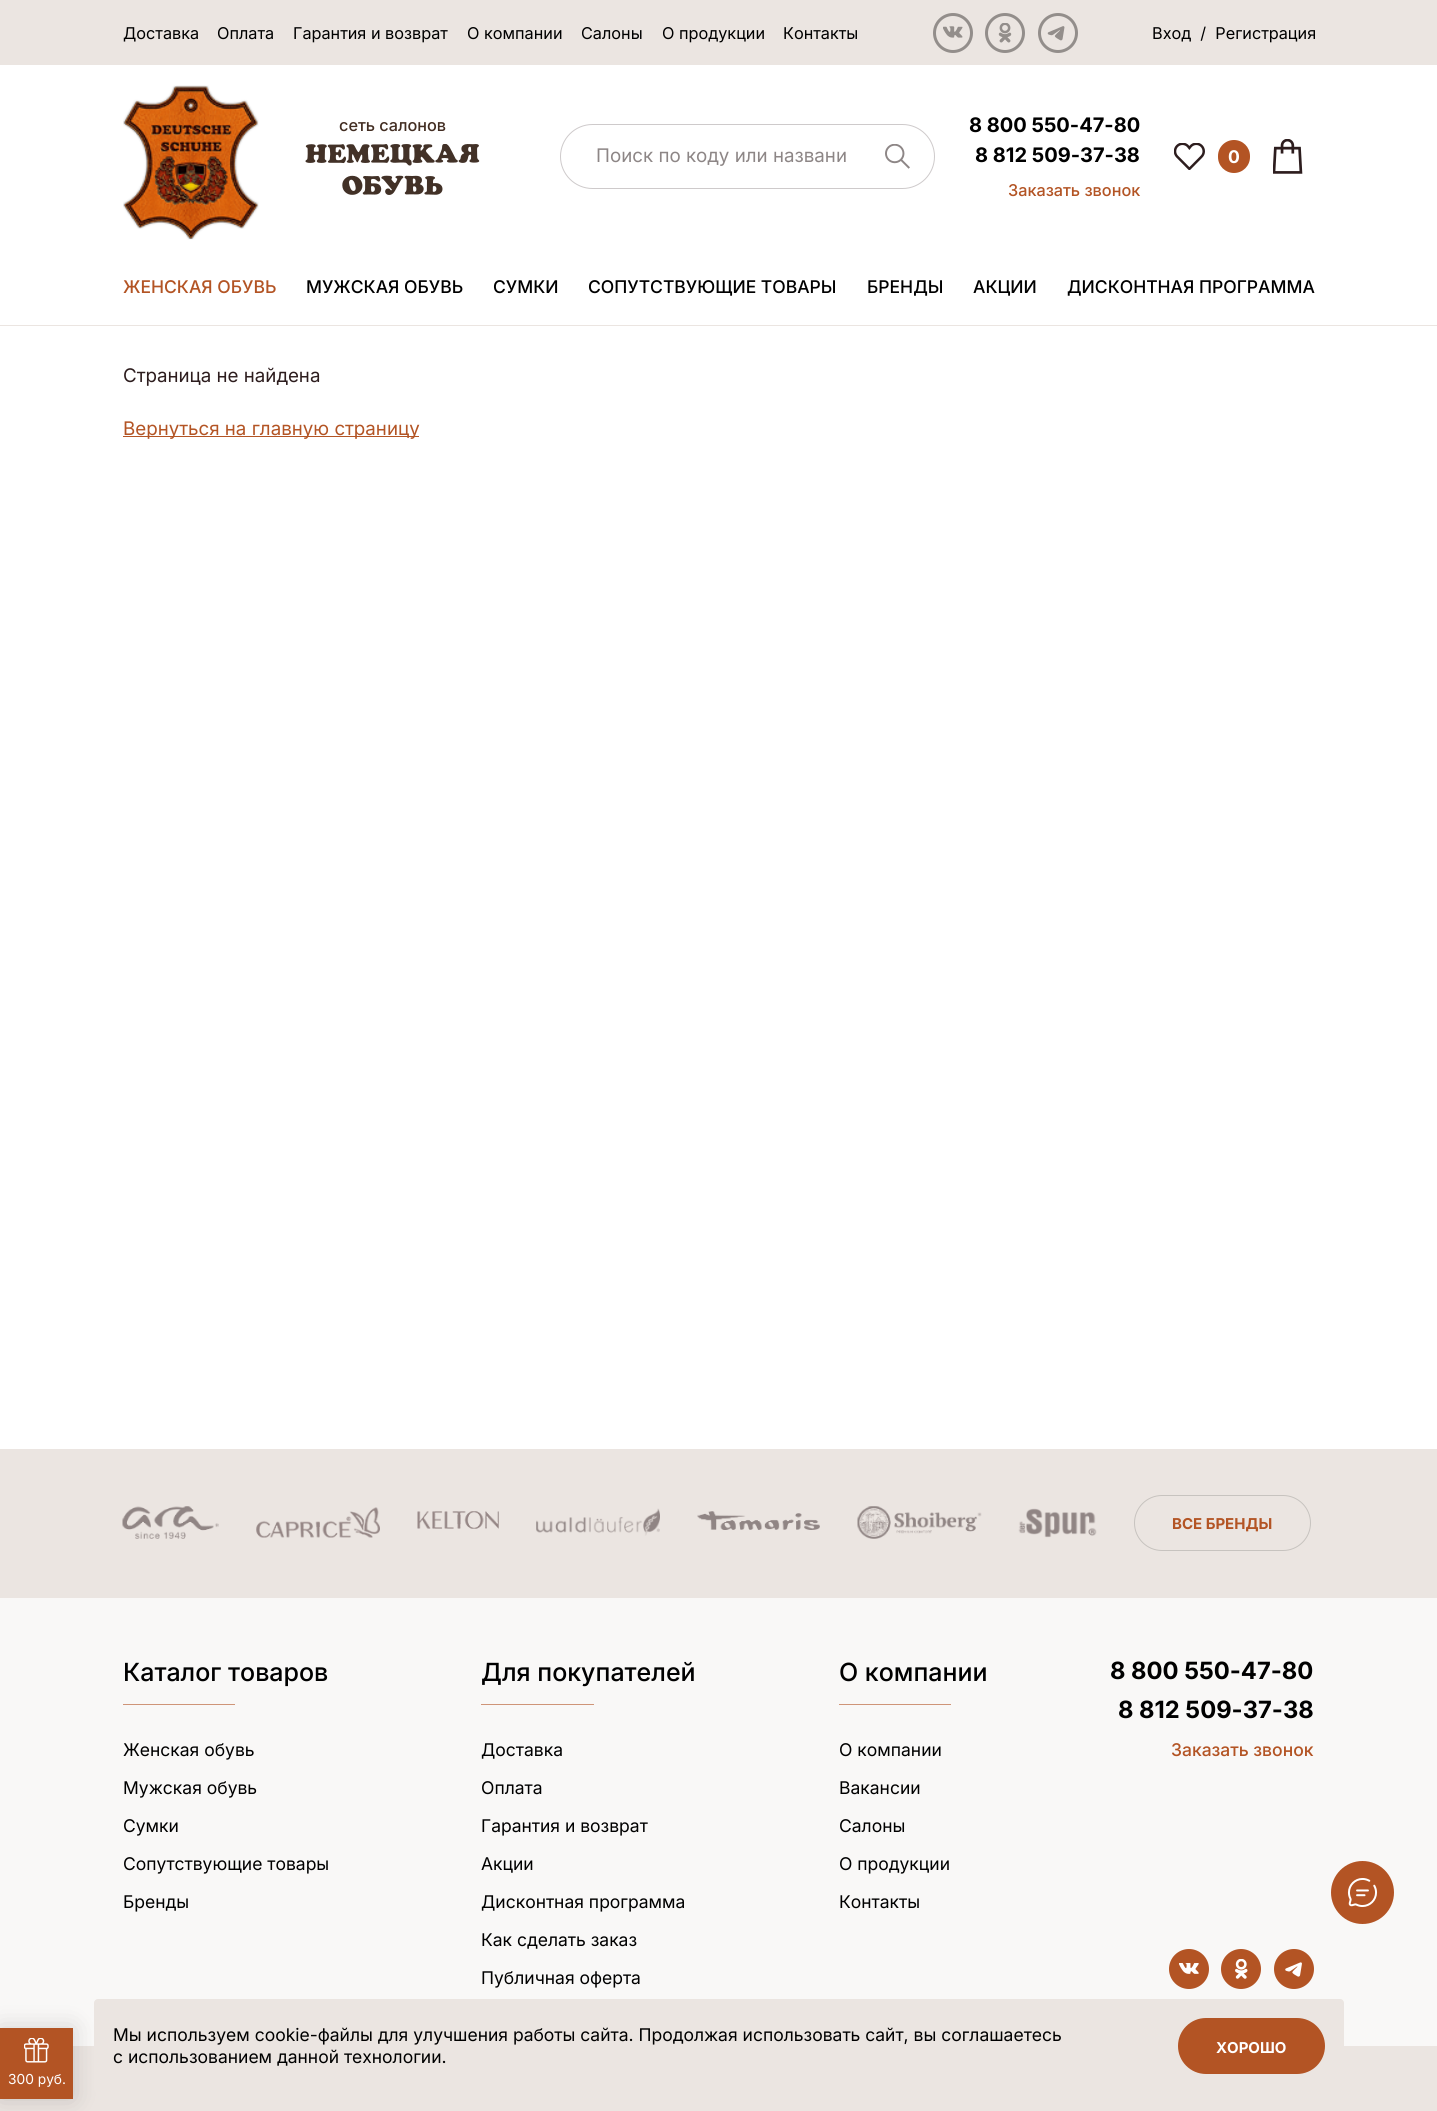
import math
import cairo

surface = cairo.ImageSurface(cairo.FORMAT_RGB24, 1437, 2111)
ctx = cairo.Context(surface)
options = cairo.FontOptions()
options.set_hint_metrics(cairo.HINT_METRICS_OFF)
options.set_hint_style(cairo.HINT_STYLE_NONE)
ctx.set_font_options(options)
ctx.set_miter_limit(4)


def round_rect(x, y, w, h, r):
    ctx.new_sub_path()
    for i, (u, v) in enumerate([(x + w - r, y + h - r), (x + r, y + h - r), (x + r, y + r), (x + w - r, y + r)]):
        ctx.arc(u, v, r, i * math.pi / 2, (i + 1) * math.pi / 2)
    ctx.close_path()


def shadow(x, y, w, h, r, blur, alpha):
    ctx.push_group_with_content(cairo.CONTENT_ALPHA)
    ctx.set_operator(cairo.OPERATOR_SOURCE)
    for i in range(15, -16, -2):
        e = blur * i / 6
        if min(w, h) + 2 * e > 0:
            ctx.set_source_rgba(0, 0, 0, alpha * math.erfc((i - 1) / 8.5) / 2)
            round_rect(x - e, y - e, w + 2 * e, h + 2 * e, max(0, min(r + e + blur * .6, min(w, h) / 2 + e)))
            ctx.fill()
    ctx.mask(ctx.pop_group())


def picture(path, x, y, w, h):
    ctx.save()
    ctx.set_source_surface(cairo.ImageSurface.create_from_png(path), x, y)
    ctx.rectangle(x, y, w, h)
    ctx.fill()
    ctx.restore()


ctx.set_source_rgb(1, 1, 1)
ctx.paint()
ctx.set_source_rgb(0.918, 0.898, 0.882)
ctx.rectangle(0, 0, 1437, 65)
ctx.fill()
ctx.select_font_face("Inter")
ctx.set_font_size(16.25)
ctx.set_source_rgb(0, 0, 0)
ctx.move_to(123, 39)
ctx.show_text("Доставка")
ctx.move_to(217, 39)
ctx.show_text("Оплата")
ctx.move_to(293, 39)
ctx.show_text("Гарантия и возврат")
ctx.move_to(467, 39)
ctx.show_text("О компании")
ctx.move_to(581, 39)
ctx.show_text("Салоны")
ctx.move_to(662, 39)
ctx.show_text("О продукции")
ctx.move_to(783, 39)
ctx.show_text("Контакты")
ctx.new_path()
ctx.arc(953, 33, 18.5, 0, 2 * math.pi)
ctx.set_source_rgb(0.576, 0.557, 0.545)
ctx.set_line_width(3)
ctx.stroke()
picture("img1.png", 943, 26, 20, 12)
ctx.arc(1005, 33, 18.5, 0, 2 * math.pi)
ctx.stroke()
picture("img2.png", 998, 23, 14, 20)
ctx.arc(1058, 33, 18.5, 0, 2 * math.pi)
ctx.stroke()
picture("img3.png", 1047, 26, 18, 15)
ctx.set_source_rgb(0, 0, 0)
ctx.move_to(1152, 39)
ctx.show_text("Вход  /  Регистрация")
ctx.set_source_rgb(0.918, 0.898, 0.882)
ctx.rectangle(0, 325, 1437, 1)
ctx.fill()
picture("img4.png", 123, 85, 136, 155)
ctx.select_font_face("Inter Medium")
ctx.set_source_rgb(0.259, 0.176, 0.133)
ctx.move_to(339, 131)
ctx.show_text("сеть салонов")
picture("img5.png", 305, 144, 175, 51)
ctx.select_font_face("Inter", cairo.FONT_SLANT_NORMAL, cairo.FONT_WEIGHT_BOLD)
ctx.set_font_size(20)
ctx.set_source_rgb(0, 0, 0)
ctx.move_to(969, 132)
ctx.show_text("8 800 550-47-80")
ctx.move_to(975, 162)
ctx.show_text("8 812 509-37-38")
ctx.select_font_face("Inter Medium")
ctx.set_font_size(16.25)
ctx.set_source_rgb(0.702, 0.329, 0.141)
ctx.move_to(1008, 196)
ctx.show_text("Заказать звонок")
round_rect(560.5, 124.5, 374, 64, 32)
ctx.set_source_rgb(0.808, 0.792, 0.796)
ctx.set_line_width(1)
ctx.stroke()
ctx.select_font_face("Inter")
ctx.set_font_size(18.75)
ctx.set_source_rgb(0.553, 0.525, 0.525)
ctx.move_to(596, 162)
ctx.show_text("Поиск по коду или названи")
picture("img6.png", 885, 144, 25, 25)
picture("img7.png", 1174, 143, 31, 27)
ctx.set_source_rgb(0.702, 0.329, 0.141)
round_rect(1218, 140, 32, 33, 16)
ctx.fill()
ctx.select_font_face("Inter", cairo.FONT_SLANT_NORMAL, cairo.FONT_WEIGHT_BOLD)
ctx.set_font_size(17.5)
ctx.set_source_rgb(1, 1, 1)
ctx.move_to(1228, 163)
ctx.show_text("0")
picture("img8.png", 1273, 139, 30, 35)
ctx.select_font_face("Inter Medium")
ctx.set_source_rgb(0.702, 0.329, 0.141)
ctx.move_to(123, 293)
ctx.show_text("ЖЕНСКАЯ ОБУВЬ")
ctx.set_source_rgb(0, 0, 0)
ctx.move_to(306, 293)
ctx.show_text("МУЖСКАЯ ОБУВЬ")
ctx.move_to(493, 293)
ctx.show_text("СУМКИ")
ctx.move_to(588, 293)
ctx.show_text("СОПУТСТВУЮЩИЕ ТОВАРЫ")
ctx.move_to(867, 293)
ctx.show_text("БРЕНДЫ")
ctx.move_to(973, 293)
ctx.show_text("АКЦИИ")
ctx.move_to(1067, 293)
ctx.show_text("ДИСКОНТНАЯ ПРОГРАММА")
ctx.select_font_face("Inter")
ctx.set_font_size(18.75)
ctx.set_source_rgb(0.176, 0.114, 0.118)
ctx.move_to(123, 382)
ctx.show_text("Страница не найдена")
ctx.set_source_rgb(0.702, 0.329, 0.141)
ctx.rectangle(123, 436, 296, 1)
ctx.fill()
ctx.move_to(123, 435)
ctx.show_text("Вернуться на главную страницу")
ctx.set_source_rgb(0.976, 0.969, 0.965)
ctx.rectangle(0, 1598, 1437, 448)
ctx.fill()
ctx.set_source_rgb(0.918, 0.898, 0.882)
ctx.rectangle(0, 1449, 1437, 149)
ctx.fill()
picture("img9.png", 122, 1506, 97, 33)
picture("img10.png", 256, 1507, 124, 31)
picture("img11.png", 417, 1511, 82, 18)
picture("img12.png", 536, 1508, 124, 28)
picture("img13.png", 697, 1511, 123, 19)
picture("img14.png", 857, 1506, 125, 33)
picture("img15.png", 1018, 1508, 79, 30)
round_rect(1134.5, 1495.5, 176, 55, 27.5)
ctx.set_source_rgb(0.78, 0.765, 0.749)
ctx.stroke()
ctx.select_font_face("Inter", cairo.FONT_SLANT_NORMAL, cairo.FONT_WEIGHT_BOLD)
ctx.set_font_size(15)
ctx.set_source_rgb(0.702, 0.329, 0.141)
ctx.move_to(1172, 1529)
ctx.show_text("ВСЕ БРЕНДЫ")
ctx.select_font_face("Inter Medium")
ctx.set_font_size(25)
ctx.set_source_rgb(0, 0, 0)
ctx.move_to(123, 1681)
ctx.show_text("Каталог товаров")
ctx.set_source_rgb(0.812, 0.584, 0.471)
ctx.rectangle(123, 1704, 112, 1)
ctx.fill()
ctx.select_font_face("Inter")
ctx.set_font_size(17.5)
ctx.set_source_rgb(0, 0, 0)
ctx.move_to(123, 1756)
ctx.show_text("Женская обувь")
ctx.move_to(123, 1794)
ctx.show_text("Мужская обувь")
ctx.move_to(123, 1832)
ctx.show_text("Сумки")
ctx.move_to(123, 1870)
ctx.show_text("Сопутствующие товары")
ctx.move_to(123, 1908)
ctx.show_text("Бренды")
ctx.select_font_face("Inter Medium")
ctx.set_font_size(25)
ctx.move_to(481, 1681)
ctx.show_text("Для покупателей")
ctx.set_source_rgb(0.812, 0.584, 0.471)
ctx.rectangle(481, 1704, 113, 1)
ctx.fill()
ctx.select_font_face("Inter")
ctx.set_font_size(17.5)
ctx.set_source_rgb(0, 0, 0)
ctx.move_to(481, 1756)
ctx.show_text("Доставка")
ctx.move_to(481, 1794)
ctx.show_text("Оплата")
ctx.move_to(481, 1832)
ctx.show_text("Гарантия и возврат")
ctx.move_to(481, 1870)
ctx.show_text("Акции")
ctx.move_to(481, 1908)
ctx.show_text("Дисконтная программа")
ctx.move_to(481, 1946)
ctx.show_text("Как сделать заказ")
ctx.move_to(481, 1984)
ctx.show_text("Публичная оферта")
ctx.select_font_face("Inter Medium")
ctx.set_font_size(25)
ctx.move_to(839, 1681)
ctx.show_text("О компании")
ctx.set_source_rgb(0.812, 0.584, 0.471)
ctx.rectangle(839, 1704, 112, 1)
ctx.fill()
ctx.select_font_face("Inter")
ctx.set_font_size(17.5)
ctx.set_source_rgb(0, 0, 0)
ctx.move_to(839, 1756)
ctx.show_text("О компании")
ctx.move_to(839, 1794)
ctx.show_text("Вакансии")
ctx.move_to(839, 1832)
ctx.show_text("Салоны")
ctx.move_to(839, 1870)
ctx.show_text("О продукции")
ctx.move_to(839, 1908)
ctx.show_text("Контакты")
ctx.select_font_face("Inter", cairo.FONT_SLANT_NORMAL, cairo.FONT_WEIGHT_BOLD)
ctx.set_font_size(23.75)
ctx.move_to(1110, 1679)
ctx.show_text("8 800 550-47-80")
ctx.move_to(1118, 1718)
ctx.show_text("8 812 509-37-38")
ctx.select_font_face("Inter Medium")
ctx.set_font_size(17.5)
ctx.set_source_rgb(0.702, 0.329, 0.141)
ctx.move_to(1171, 1756)
ctx.show_text("Заказать звонок")
ctx.new_path()
ctx.arc(1189, 1969, 20, 0, 2 * math.pi)
ctx.fill()
picture("img16.png", 1179, 1963, 20, 11)
ctx.arc(1241, 1969, 20, 0, 2 * math.pi)
ctx.fill()
picture("img17.png", 1235, 1959, 13, 20)
ctx.arc(1294, 1969, 20, 0, 2 * math.pi)
ctx.fill()
picture("img18.png", 1285, 1962, 17, 15)
ctx.set_source_rgb(0.918, 0.898, 0.882)
ctx.rectangle(0, 2046, 1437, 65)
ctx.fill()
ctx.set_source_rgb(0.702, 0.329, 0.141)
ctx.arc(1362.5, 1892.5, 31.5, 0, 2 * math.pi)
ctx.fill()
picture("img19.png", 1347, 1878, 31, 29)
ctx.set_source_rgb(0, 0, 0)
shadow(0, 2028, 73, 71, 0, 12.5, 0.15)
ctx.set_source_rgb(0.918, 0.898, 0.882)
round_rect(94, 1999, 1250, 94, 4)
ctx.fill()
ctx.select_font_face("Inter")
ctx.set_source_rgb(0, 0, 0)
ctx.move_to(113, 2041)
ctx.show_text("Мы используем cookie-файлы для улучшения работы сайта. Продолжая использовать сайт, вы соглашаетесь")
ctx.move_to(113, 2063)
ctx.show_text("с использованием данной технологии.")
ctx.set_source_rgb(0.702, 0.329, 0.141)
round_rect(1178, 2018, 147, 56, 28)
ctx.fill()
ctx.select_font_face("Inter", cairo.FONT_SLANT_NORMAL, cairo.FONT_WEIGHT_BOLD)
ctx.set_font_size(15)
ctx.set_source_rgb(1, 1, 1)
ctx.move_to(1216, 2053)
ctx.show_text("ХОРОШО")
ctx.set_source_rgb(0.702, 0.329, 0.141)
ctx.rectangle(0, 2028, 73, 71)
ctx.fill()
picture("img20.png", 24, 2038, 25, 25)
ctx.select_font_face("Inter")
ctx.set_font_size(13.75)
ctx.set_source_rgb(1, 1, 1)
ctx.move_to(8, 2084)
ctx.show_text("300 руб.")
surface.write_to_png("page.png")
